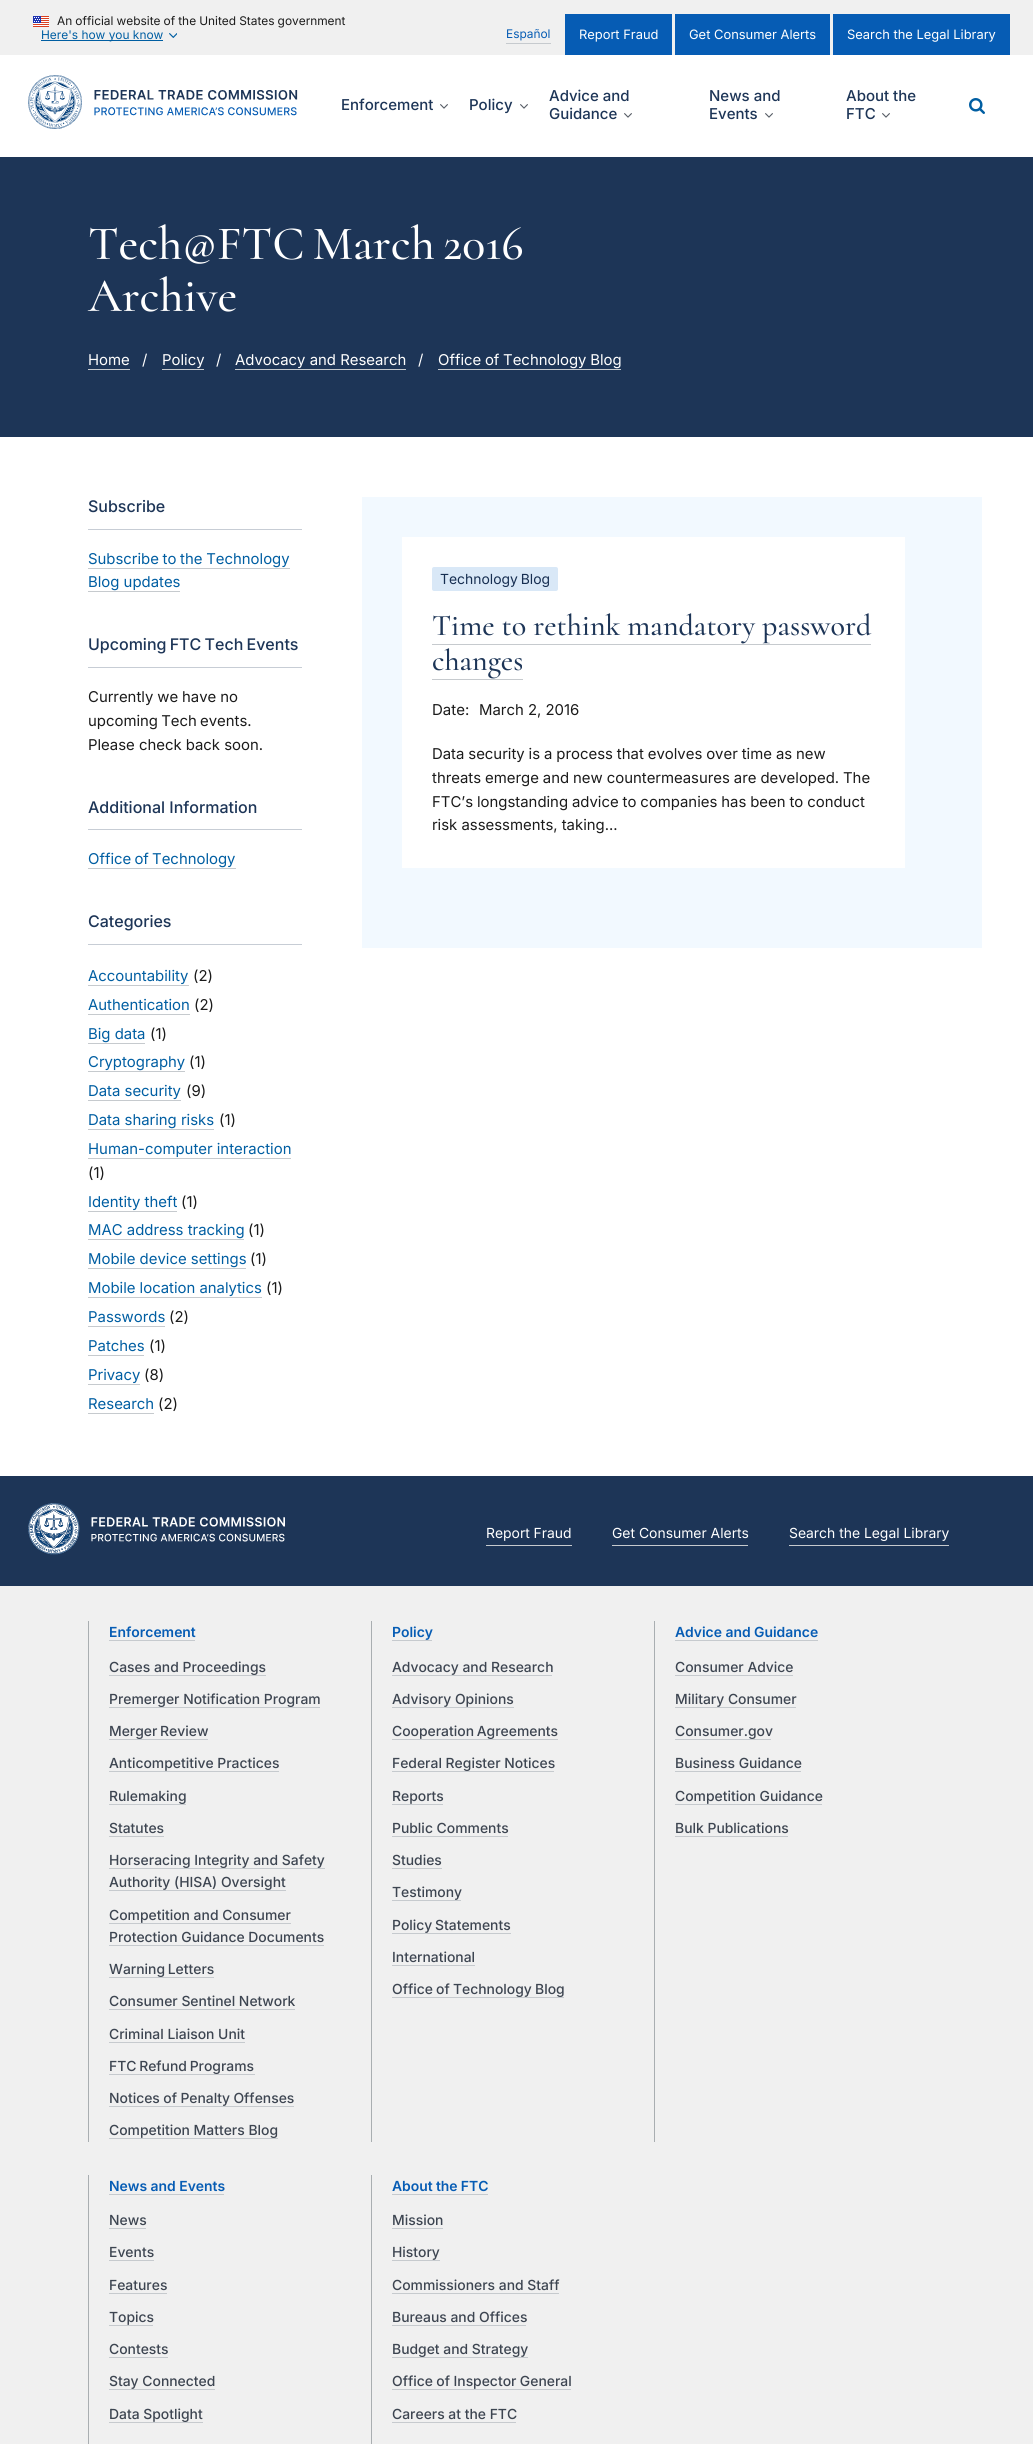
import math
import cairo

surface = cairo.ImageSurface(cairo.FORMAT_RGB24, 1033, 2444)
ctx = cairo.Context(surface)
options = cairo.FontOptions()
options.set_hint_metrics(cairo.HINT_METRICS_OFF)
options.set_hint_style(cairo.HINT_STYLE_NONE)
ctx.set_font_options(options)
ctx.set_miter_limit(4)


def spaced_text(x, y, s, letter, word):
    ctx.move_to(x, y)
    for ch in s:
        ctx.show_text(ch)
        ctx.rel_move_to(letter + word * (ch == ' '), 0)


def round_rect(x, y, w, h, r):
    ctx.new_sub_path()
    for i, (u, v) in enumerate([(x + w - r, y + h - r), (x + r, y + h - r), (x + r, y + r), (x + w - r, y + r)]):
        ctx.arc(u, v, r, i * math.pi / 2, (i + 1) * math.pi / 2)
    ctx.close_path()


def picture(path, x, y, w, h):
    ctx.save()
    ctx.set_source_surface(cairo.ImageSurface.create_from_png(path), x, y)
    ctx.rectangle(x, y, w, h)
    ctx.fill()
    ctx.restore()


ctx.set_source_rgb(1, 1, 1)
ctx.paint()
ctx.set_source_rgb(0.941, 0.941, 0.941)
ctx.rectangle(0, 0, 1033, 55)
ctx.fill()
picture("img1.png", 33, 16, 16, 11)
ctx.select_font_face("Inter")
ctx.set_font_size(11.9)
ctx.set_source_rgb(0.106, 0.106, 0.106)
spaced_text(57, 25, "An official website of the United States government", 0, -0.25)
ctx.set_source_rgb(0, 0.369, 0.635)
ctx.rectangle(41, 40, 122, 1)
ctx.fill()
ctx.move_to(41, 39)
ctx.show_text("Here's how you know")
picture("img2.png", 169, 33, 8, 5)
ctx.set_source_rgb(0.776, 0.792, 0.808)
ctx.rectangle(506, 43, 45, 1)
ctx.fill()
ctx.set_source_rgb(0.024, 0.361, 0.706)
ctx.move_to(506, 38)
ctx.show_text("Español")
ctx.rectangle(565, 14, 107, 41)
ctx.fill()
ctx.set_font_size(12.9)
ctx.set_source_rgb(1, 1, 1)
ctx.move_to(579, 39)
ctx.show_text("Report Fraud")
ctx.set_source_rgb(0.024, 0.361, 0.706)
ctx.rectangle(675, 14, 155, 41)
ctx.fill()
ctx.set_source_rgb(1, 1, 1)
ctx.move_to(689, 39)
ctx.show_text("Get Consumer Alerts")
ctx.set_source_rgb(0.024, 0.361, 0.706)
ctx.rectangle(833, 14, 177, 41)
ctx.fill()
ctx.set_source_rgb(1, 1, 1)
ctx.move_to(847, 39)
ctx.show_text("Search the Legal Library")
picture("img3.png", 28, 75, 270, 54)
ctx.select_font_face("Inter Medium")
ctx.set_font_size(15)
ctx.set_source_rgb(0.114, 0.208, 0.341)
ctx.move_to(341, 110)
ctx.show_text("Enforcement")
picture("img4.png", 440, 104, 8, 5)
ctx.move_to(469, 110)
ctx.show_text("Policy")
picture("img4.png", 520, 104, 8, 5)
ctx.move_to(549, 101)
ctx.show_text("Advice and")
ctx.move_to(549, 119)
ctx.show_text("Guidance")
picture("img4.png", 624, 113, 8, 5)
ctx.move_to(709, 101)
ctx.show_text("News and")
ctx.move_to(709, 119)
ctx.show_text("Events")
picture("img4.png", 765, 113, 8, 5)
ctx.move_to(846, 101)
ctx.show_text("About the")
ctx.move_to(846, 119)
ctx.show_text("FTC")
picture("img4.png", 882, 113, 8, 5)
picture("img5.png", 969, 98, 16, 16)
ctx.rectangle(0, 157, 1033, 280)
ctx.fill()
ctx.select_font_face("Cormorant Medium")
ctx.set_font_size(48)
ctx.set_source_rgb(1, 1, 1)
spaced_text(88, 259, "Tech@FTC March 2016", 0, -3)
ctx.move_to(88, 311)
ctx.show_text("Archive")
ctx.select_font_face("Inter")
ctx.set_font_size(14.9)
ctx.move_to(88, 365)
ctx.show_text("Home")
ctx.set_source_rgb(0.776, 0.792, 0.808)
ctx.rectangle(88, 369, 42, 1)
ctx.fill()
ctx.set_source_rgb(1, 1, 1)
ctx.move_to(142, 365)
ctx.show_text("/")
ctx.move_to(162, 365)
ctx.show_text("Policy")
ctx.set_source_rgb(0.776, 0.792, 0.808)
ctx.rectangle(162, 369, 42, 1)
ctx.fill()
ctx.set_source_rgb(1, 1, 1)
ctx.move_to(216, 365)
ctx.show_text("/")
ctx.move_to(235, 365)
ctx.show_text("Advocacy and Research")
ctx.set_source_rgb(0.776, 0.792, 0.808)
ctx.rectangle(235, 369, 171, 1)
ctx.fill()
ctx.set_source_rgb(1, 1, 1)
ctx.move_to(418, 365)
ctx.show_text("/")
spaced_text(438, 365, "Office of Technology Blog", 0, -0.5)
ctx.set_source_rgb(0.776, 0.792, 0.808)
ctx.rectangle(438, 369, 183, 1)
ctx.fill()
ctx.set_source_rgb(0.78, 0.804, 0.835)
ctx.rectangle(88, 529, 214, 1)
ctx.fill()
ctx.select_font_face("Inter Medium")
ctx.set_font_size(16)
ctx.set_source_rgb(0.114, 0.208, 0.341)
ctx.move_to(88, 512)
ctx.show_text("Subscribe")
ctx.select_font_face("Inter")
ctx.set_font_size(14.9)
ctx.set_source_rgb(0, 0.369, 0.635)
spaced_text(88, 564, "Subscribe to the Technology", 0, -0.5)
ctx.set_source_rgb(0.776, 0.792, 0.808)
ctx.rectangle(88, 568, 202, 1)
ctx.fill()
ctx.set_source_rgb(0, 0.369, 0.635)
ctx.move_to(88, 587)
ctx.show_text("Blog updates")
ctx.set_source_rgb(0.776, 0.792, 0.808)
ctx.rectangle(88, 591, 92, 1)
ctx.fill()
ctx.set_source_rgb(0.78, 0.804, 0.835)
ctx.rectangle(88, 667, 214, 1)
ctx.fill()
ctx.select_font_face("Inter Medium")
ctx.set_font_size(16)
ctx.set_source_rgb(0.114, 0.208, 0.341)
spaced_text(88, 650, "Upcoming FTC Tech Events", 0, -1)
ctx.select_font_face("Inter")
ctx.set_font_size(14.9)
ctx.set_source_rgb(0.106, 0.106, 0.106)
spaced_text(88, 702, "Currently we have no", 0, -0.25)
spaced_text(88, 726, "upcoming Tech events.", 0, -1)
ctx.move_to(88, 750)
ctx.show_text("Please check back soon.")
ctx.set_source_rgb(0.78, 0.804, 0.835)
ctx.rectangle(88, 829, 214, 1)
ctx.fill()
ctx.select_font_face("Inter Medium")
ctx.set_font_size(16)
ctx.set_source_rgb(0.114, 0.208, 0.341)
ctx.move_to(88, 813)
ctx.show_text("Additional Information")
ctx.select_font_face("Inter")
ctx.set_font_size(14.9)
ctx.set_source_rgb(0, 0.369, 0.635)
spaced_text(88, 864, "Office of Technology", 0, -1)
ctx.set_source_rgb(0.776, 0.792, 0.808)
ctx.rectangle(88, 868, 148, 1)
ctx.fill()
ctx.set_source_rgb(0.78, 0.804, 0.835)
ctx.rectangle(88, 944, 214, 1)
ctx.fill()
ctx.select_font_face("Inter Medium")
ctx.set_font_size(16)
ctx.set_source_rgb(0.114, 0.208, 0.341)
ctx.move_to(88, 927)
ctx.show_text("Categories")
ctx.select_font_face("Inter")
ctx.set_font_size(14.9)
ctx.set_source_rgb(0, 0.369, 0.635)
ctx.move_to(88, 981)
ctx.show_text("Accountability")
ctx.set_source_rgb(0.776, 0.792, 0.808)
ctx.rectangle(88, 985, 101, 1)
ctx.fill()
ctx.set_source_rgb(0.106, 0.106, 0.106)
ctx.move_to(193, 981)
ctx.show_text("(2)")
ctx.set_source_rgb(0, 0.369, 0.635)
ctx.move_to(88, 1010)
ctx.show_text("Authentication")
ctx.set_source_rgb(0.776, 0.792, 0.808)
ctx.rectangle(88, 1014, 102, 1)
ctx.fill()
ctx.set_source_rgb(0.106, 0.106, 0.106)
ctx.move_to(194, 1010)
ctx.show_text("(2)")
ctx.set_source_rgb(0, 0.369, 0.635)
ctx.move_to(88, 1039)
ctx.show_text("Big data")
ctx.set_source_rgb(0.776, 0.792, 0.808)
ctx.rectangle(88, 1043, 57, 1)
ctx.fill()
ctx.set_source_rgb(0.106, 0.106, 0.106)
ctx.move_to(150, 1039)
ctx.show_text("(1)")
ctx.set_source_rgb(0, 0.369, 0.635)
ctx.move_to(88, 1067)
ctx.show_text("Cryptography")
ctx.set_source_rgb(0.776, 0.792, 0.808)
ctx.rectangle(88, 1071, 97, 1)
ctx.fill()
ctx.set_source_rgb(0.106, 0.106, 0.106)
ctx.move_to(189, 1067)
ctx.show_text("(1)")
ctx.set_source_rgb(0, 0.369, 0.635)
ctx.move_to(88, 1096)
ctx.show_text("Data security")
ctx.set_source_rgb(0.776, 0.792, 0.808)
ctx.rectangle(88, 1100, 93, 1)
ctx.fill()
ctx.set_source_rgb(0.106, 0.106, 0.106)
ctx.move_to(186, 1096)
ctx.show_text("(9)")
ctx.set_source_rgb(0, 0.369, 0.635)
ctx.move_to(88, 1125)
ctx.show_text("Data sharing risks")
ctx.set_source_rgb(0.776, 0.792, 0.808)
ctx.rectangle(88, 1129, 126, 1)
ctx.fill()
ctx.set_source_rgb(0.106, 0.106, 0.106)
ctx.move_to(219, 1125)
ctx.show_text("(1)")
ctx.set_source_rgb(0, 0.369, 0.635)
ctx.move_to(88, 1154)
ctx.show_text("Human-computer interaction")
ctx.set_source_rgb(0.776, 0.792, 0.808)
ctx.rectangle(88, 1158, 203, 1)
ctx.fill()
ctx.set_source_rgb(0.106, 0.106, 0.106)
ctx.move_to(88, 1178)
ctx.show_text("(1)")
ctx.set_source_rgb(0, 0.369, 0.635)
ctx.move_to(88, 1207)
ctx.show_text("Identity theft")
ctx.set_source_rgb(0.776, 0.792, 0.808)
ctx.rectangle(88, 1211, 89, 1)
ctx.fill()
ctx.set_source_rgb(0.106, 0.106, 0.106)
ctx.move_to(181, 1207)
ctx.show_text("(1)")
ctx.set_source_rgb(0, 0.369, 0.635)
ctx.move_to(88, 1235)
ctx.show_text("MAC address tracking")
ctx.set_source_rgb(0.776, 0.792, 0.808)
ctx.rectangle(88, 1239, 156, 1)
ctx.fill()
ctx.set_source_rgb(0.106, 0.106, 0.106)
ctx.move_to(248, 1235)
ctx.show_text("(1)")
ctx.set_source_rgb(0, 0.369, 0.635)
ctx.move_to(88, 1264)
ctx.show_text("Mobile device settings")
ctx.set_source_rgb(0.776, 0.792, 0.808)
ctx.rectangle(88, 1268, 158, 1)
ctx.fill()
ctx.set_source_rgb(0.106, 0.106, 0.106)
ctx.move_to(250, 1264)
ctx.show_text("(1)")
ctx.set_source_rgb(0, 0.369, 0.635)
ctx.move_to(88, 1293)
ctx.show_text("Mobile location analytics")
ctx.set_source_rgb(0.776, 0.792, 0.808)
ctx.rectangle(88, 1297, 174, 1)
ctx.fill()
ctx.set_source_rgb(0.106, 0.106, 0.106)
ctx.move_to(266, 1293)
ctx.show_text("(1)")
ctx.set_source_rgb(0, 0.369, 0.635)
ctx.move_to(88, 1322)
ctx.show_text("Passwords")
ctx.set_source_rgb(0.776, 0.792, 0.808)
ctx.rectangle(88, 1326, 77, 1)
ctx.fill()
ctx.set_source_rgb(0.106, 0.106, 0.106)
ctx.move_to(169, 1322)
ctx.show_text("(2)")
ctx.set_source_rgb(0, 0.369, 0.635)
ctx.move_to(88, 1351)
ctx.show_text("Patches")
ctx.set_source_rgb(0.776, 0.792, 0.808)
ctx.rectangle(88, 1355, 56, 1)
ctx.fill()
ctx.set_source_rgb(0.106, 0.106, 0.106)
ctx.move_to(149, 1351)
ctx.show_text("(1)")
ctx.set_source_rgb(0, 0.369, 0.635)
ctx.move_to(88, 1380)
ctx.show_text("Privacy")
ctx.set_source_rgb(0.776, 0.792, 0.808)
ctx.rectangle(88, 1384, 52, 1)
ctx.fill()
ctx.set_source_rgb(0.106, 0.106, 0.106)
ctx.move_to(144, 1380)
ctx.show_text("(8)")
ctx.set_source_rgb(0, 0.369, 0.635)
ctx.move_to(88, 1409)
ctx.show_text("Research")
ctx.set_source_rgb(0.776, 0.792, 0.808)
ctx.rectangle(88, 1413, 66, 1)
ctx.fill()
ctx.set_source_rgb(0.106, 0.106, 0.106)
ctx.move_to(158, 1409)
ctx.show_text("(2)")
ctx.set_source_rgb(0.949, 0.973, 1)
ctx.rectangle(362, 497, 620, 451)
ctx.fill()
ctx.set_source_rgb(1, 1, 1)
ctx.rectangle(402, 537, 503, 331)
ctx.fill()
ctx.set_source_rgb(0.851, 0.91, 0.965)
round_rect(432, 567, 126, 24, 2)
ctx.fill()
ctx.set_font_size(13.9)
ctx.set_source_rgb(0.086, 0.18, 0.318)
spaced_text(440, 584, "Technology Blog", 0, -1)
ctx.select_font_face("Cormorant Medium")
ctx.set_font_size(30)
ctx.set_source_rgb(0.114, 0.208, 0.341)
ctx.move_to(432, 635)
ctx.show_text("Time to rethink mandatory password")
ctx.set_source_rgb(0.776, 0.792, 0.808)
ctx.rectangle(432, 644, 439, 1)
ctx.fill()
ctx.set_source_rgb(0.114, 0.208, 0.341)
ctx.move_to(432, 670)
ctx.show_text("changes")
ctx.set_source_rgb(0.776, 0.792, 0.808)
ctx.rectangle(432, 679, 91, 1)
ctx.fill()
ctx.select_font_face("Inter")
ctx.set_font_size(15)
ctx.set_source_rgb(0.106, 0.106, 0.106)
ctx.move_to(432, 715)
ctx.show_text("Date:")
ctx.set_font_size(14.9)
ctx.move_to(479, 715)
ctx.show_text("March 2, 2016")
spaced_text(432, 759, "Data security is a process that evolves over time as new", 0, -0.25)
spaced_text(432, 783, "threats emerge and new countermeasures are developed. The", 0, -0.25)
spaced_text(432, 807, "FTC’s longstanding advice to companies has been to conduct", 0, -0.25)
ctx.move_to(432, 830)
ctx.show_text("risk assessments, taking...")
ctx.set_source_rgb(0.114, 0.208, 0.341)
ctx.rectangle(0, 1476, 1033, 110)
ctx.fill()
picture("img6.png", 28, 1503, 257, 52)
ctx.set_source_rgb(0.776, 0.792, 0.808)
ctx.rectangle(486, 1545, 86, 1)
ctx.fill()
ctx.set_font_size(13.9)
ctx.set_source_rgb(1, 1, 1)
ctx.move_to(486, 1538)
ctx.show_text("Report Fraud")
ctx.set_source_rgb(0.776, 0.792, 0.808)
ctx.rectangle(612, 1545, 136, 1)
ctx.fill()
ctx.set_source_rgb(1, 1, 1)
ctx.move_to(612, 1538)
ctx.show_text("Get Consumer Alerts")
ctx.set_source_rgb(0.776, 0.792, 0.808)
ctx.rectangle(789, 1545, 160, 1)
ctx.fill()
ctx.set_source_rgb(1, 1, 1)
ctx.move_to(789, 1538)
ctx.show_text("Search the Legal Library")
ctx.set_source_rgb(0.941, 0.941, 0.941)
ctx.rectangle(0, 1586, 1033, 858)
ctx.fill()
ctx.set_source_rgb(0.663, 0.682, 0.694)
ctx.rectangle(88, 1621, 1, 521)
ctx.fill()
ctx.select_font_face("Inter SemiBold")
ctx.set_source_rgb(0.024, 0.361, 0.706)
ctx.move_to(109, 1637)
ctx.show_text("Enforcement")
ctx.set_source_rgb(0.776, 0.792, 0.808)
ctx.rectangle(109, 1640, 86, 1)
ctx.fill()
ctx.select_font_face("Inter Medium")
ctx.set_source_rgb(0.239, 0.271, 0.318)
ctx.move_to(109, 1672)
ctx.show_text("Cases and Proceedings")
ctx.set_source_rgb(0.776, 0.792, 0.808)
ctx.rectangle(109, 1675, 157, 1)
ctx.fill()
ctx.set_source_rgb(0.239, 0.271, 0.318)
ctx.move_to(109, 1704)
ctx.show_text("Premerger Notification Program")
ctx.set_source_rgb(0.776, 0.792, 0.808)
ctx.rectangle(109, 1707, 211, 1)
ctx.fill()
ctx.set_source_rgb(0.239, 0.271, 0.318)
spaced_text(109, 1736, "Merger Review", 0, -1)
ctx.set_source_rgb(0.776, 0.792, 0.808)
ctx.rectangle(109, 1739, 99, 1)
ctx.fill()
ctx.set_source_rgb(0.239, 0.271, 0.318)
ctx.move_to(109, 1768)
ctx.show_text("Anticompetitive Practices")
ctx.set_source_rgb(0.776, 0.792, 0.808)
ctx.rectangle(109, 1771, 170, 1)
ctx.fill()
ctx.set_source_rgb(0.239, 0.271, 0.318)
ctx.move_to(109, 1801)
ctx.show_text("Rulemaking")
ctx.set_source_rgb(0.776, 0.792, 0.808)
ctx.rectangle(109, 1804, 77, 1)
ctx.fill()
ctx.set_source_rgb(0.239, 0.271, 0.318)
ctx.move_to(109, 1833)
ctx.show_text("Statutes")
ctx.set_source_rgb(0.776, 0.792, 0.808)
ctx.rectangle(109, 1836, 55, 1)
ctx.fill()
ctx.set_source_rgb(0.239, 0.271, 0.318)
ctx.move_to(109, 1865)
ctx.show_text("Horseracing Integrity and Safety")
ctx.set_source_rgb(0.776, 0.792, 0.808)
ctx.rectangle(109, 1868, 216, 1)
ctx.fill()
ctx.set_source_rgb(0.239, 0.271, 0.318)
ctx.move_to(109, 1887)
ctx.show_text("Authority (HISA) Oversight")
ctx.set_source_rgb(0.776, 0.792, 0.808)
ctx.rectangle(109, 1890, 177, 1)
ctx.fill()
ctx.set_source_rgb(0.239, 0.271, 0.318)
ctx.move_to(109, 1920)
ctx.show_text("Competition and Consumer")
ctx.set_source_rgb(0.776, 0.792, 0.808)
ctx.rectangle(109, 1923, 182, 1)
ctx.fill()
ctx.set_source_rgb(0.239, 0.271, 0.318)
ctx.move_to(109, 1942)
ctx.show_text("Protection Guidance Documents")
ctx.set_source_rgb(0.776, 0.792, 0.808)
ctx.rectangle(109, 1945, 215, 1)
ctx.fill()
ctx.set_source_rgb(0.239, 0.271, 0.318)
spaced_text(109, 1974, "Warning Letters", 0, -1)
ctx.set_source_rgb(0.776, 0.792, 0.808)
ctx.rectangle(109, 1977, 105, 1)
ctx.fill()
ctx.set_source_rgb(0.239, 0.271, 0.318)
ctx.move_to(109, 2006)
ctx.show_text("Consumer Sentinel Network")
ctx.set_source_rgb(0.776, 0.792, 0.808)
ctx.rectangle(109, 2009, 186, 1)
ctx.fill()
ctx.set_source_rgb(0.239, 0.271, 0.318)
ctx.move_to(109, 2039)
ctx.show_text("Criminal Liaison Unit")
ctx.set_source_rgb(0.776, 0.792, 0.808)
ctx.rectangle(109, 2042, 136, 1)
ctx.fill()
ctx.set_source_rgb(0.239, 0.271, 0.318)
spaced_text(109, 2071, "FTC Refund Programs", 0, -1)
ctx.set_source_rgb(0.776, 0.792, 0.808)
ctx.rectangle(109, 2074, 146, 1)
ctx.fill()
ctx.set_source_rgb(0.239, 0.271, 0.318)
spaced_text(109, 2103, "Notices of Penalty Offenses", 0, -0.25)
ctx.set_source_rgb(0.776, 0.792, 0.808)
ctx.rectangle(109, 2106, 185, 1)
ctx.fill()
ctx.set_source_rgb(0.239, 0.271, 0.318)
ctx.move_to(109, 2135)
ctx.show_text("Competition Matters Blog")
ctx.set_source_rgb(0.776, 0.792, 0.808)
ctx.rectangle(109, 2138, 169, 1)
ctx.fill()
ctx.set_source_rgb(0.663, 0.682, 0.694)
ctx.rectangle(371, 1621, 1, 521)
ctx.fill()
ctx.select_font_face("Inter SemiBold")
ctx.set_source_rgb(0.024, 0.361, 0.706)
ctx.move_to(392, 1637)
ctx.show_text("Policy")
ctx.set_source_rgb(0.776, 0.792, 0.808)
ctx.rectangle(392, 1640, 40, 1)
ctx.fill()
ctx.select_font_face("Inter Medium")
ctx.set_source_rgb(0.239, 0.271, 0.318)
ctx.move_to(392, 1672)
ctx.show_text("Advocacy and Research")
ctx.set_source_rgb(0.776, 0.792, 0.808)
ctx.rectangle(392, 1675, 160, 1)
ctx.fill()
ctx.set_source_rgb(0.239, 0.271, 0.318)
ctx.move_to(392, 1704)
ctx.show_text("Advisory Opinions")
ctx.set_source_rgb(0.776, 0.792, 0.808)
ctx.rectangle(392, 1707, 122, 1)
ctx.fill()
ctx.set_source_rgb(0.239, 0.271, 0.318)
spaced_text(392, 1736, "Cooperation Agreements", 0, -1)
ctx.set_source_rgb(0.776, 0.792, 0.808)
ctx.rectangle(392, 1739, 166, 1)
ctx.fill()
ctx.set_source_rgb(0.239, 0.271, 0.318)
ctx.move_to(392, 1768)
ctx.show_text("Federal Register Notices")
ctx.set_source_rgb(0.776, 0.792, 0.808)
ctx.rectangle(392, 1771, 162, 1)
ctx.fill()
ctx.set_source_rgb(0.239, 0.271, 0.318)
ctx.move_to(392, 1801)
ctx.show_text("Reports")
ctx.set_source_rgb(0.776, 0.792, 0.808)
ctx.rectangle(392, 1804, 51, 1)
ctx.fill()
ctx.set_source_rgb(0.239, 0.271, 0.318)
ctx.move_to(392, 1833)
ctx.show_text("Public Comments")
ctx.set_source_rgb(0.776, 0.792, 0.808)
ctx.rectangle(392, 1836, 116, 1)
ctx.fill()
ctx.set_source_rgb(0.239, 0.271, 0.318)
ctx.move_to(392, 1865)
ctx.show_text("Studies")
ctx.set_source_rgb(0.776, 0.792, 0.808)
ctx.rectangle(392, 1868, 50, 1)
ctx.fill()
ctx.set_source_rgb(0.239, 0.271, 0.318)
ctx.move_to(392, 1897)
ctx.show_text("Testimony")
ctx.set_source_rgb(0.776, 0.792, 0.808)
ctx.rectangle(392, 1900, 69, 1)
ctx.fill()
ctx.set_source_rgb(0.239, 0.271, 0.318)
spaced_text(392, 1930, "Policy Statements", 0, -1)
ctx.set_source_rgb(0.776, 0.792, 0.808)
ctx.rectangle(392, 1933, 119, 1)
ctx.fill()
ctx.set_source_rgb(0.239, 0.271, 0.318)
ctx.move_to(392, 1962)
ctx.show_text("International")
ctx.set_source_rgb(0.776, 0.792, 0.808)
ctx.rectangle(392, 1965, 83, 1)
ctx.fill()
ctx.set_source_rgb(0.239, 0.271, 0.318)
spaced_text(392, 1994, "Office of Technology Blog", 0, -0.5)
ctx.set_source_rgb(0.776, 0.792, 0.808)
ctx.rectangle(392, 1997, 172, 1)
ctx.fill()
ctx.set_source_rgb(0.663, 0.682, 0.694)
ctx.rectangle(654, 1621, 1, 521)
ctx.fill()
ctx.select_font_face("Inter SemiBold")
ctx.set_source_rgb(0.024, 0.361, 0.706)
ctx.move_to(675, 1637)
ctx.show_text("Advice and Guidance")
ctx.set_source_rgb(0.776, 0.792, 0.808)
ctx.rectangle(675, 1640, 143, 1)
ctx.fill()
ctx.select_font_face("Inter Medium")
ctx.set_source_rgb(0.239, 0.271, 0.318)
ctx.move_to(675, 1672)
ctx.show_text("Consumer Advice")
ctx.set_source_rgb(0.776, 0.792, 0.808)
ctx.rectangle(675, 1675, 118, 1)
ctx.fill()
ctx.set_source_rgb(0.239, 0.271, 0.318)
ctx.move_to(675, 1704)
ctx.show_text("Military Consumer")
ctx.set_source_rgb(0.776, 0.792, 0.808)
ctx.rectangle(675, 1707, 121, 1)
ctx.fill()
ctx.set_source_rgb(0.239, 0.271, 0.318)
ctx.move_to(675, 1736)
ctx.show_text("Consumer.gov")
ctx.set_source_rgb(0.776, 0.792, 0.808)
ctx.rectangle(675, 1739, 96, 1)
ctx.fill()
ctx.set_source_rgb(0.239, 0.271, 0.318)
ctx.move_to(675, 1768)
ctx.show_text("Business Guidance")
ctx.set_source_rgb(0.776, 0.792, 0.808)
ctx.rectangle(675, 1771, 126, 1)
ctx.fill()
ctx.set_source_rgb(0.239, 0.271, 0.318)
ctx.move_to(675, 1801)
ctx.show_text("Competition Guidance")
ctx.set_source_rgb(0.776, 0.792, 0.808)
ctx.rectangle(675, 1804, 147, 1)
ctx.fill()
ctx.set_source_rgb(0.239, 0.271, 0.318)
ctx.move_to(675, 1833)
ctx.show_text("Bulk Publications")
ctx.set_source_rgb(0.776, 0.792, 0.808)
ctx.rectangle(675, 1836, 113, 1)
ctx.fill()
ctx.set_source_rgb(0.663, 0.682, 0.694)
ctx.rectangle(88, 2175, 1, 269)
ctx.fill()
ctx.select_font_face("Inter SemiBold")
ctx.set_source_rgb(0.024, 0.361, 0.706)
ctx.move_to(109, 2191)
ctx.show_text("News and Events")
ctx.set_source_rgb(0.776, 0.792, 0.808)
ctx.rectangle(109, 2194, 115, 1)
ctx.fill()
ctx.select_font_face("Inter Medium")
ctx.set_source_rgb(0.239, 0.271, 0.318)
ctx.move_to(109, 2225)
ctx.show_text("News")
ctx.set_source_rgb(0.776, 0.792, 0.808)
ctx.rectangle(109, 2228, 37, 1)
ctx.fill()
ctx.set_source_rgb(0.239, 0.271, 0.318)
ctx.move_to(109, 2257)
ctx.show_text("Events")
ctx.set_source_rgb(0.776, 0.792, 0.808)
ctx.rectangle(109, 2260, 45, 1)
ctx.fill()
ctx.set_source_rgb(0.239, 0.271, 0.318)
ctx.move_to(109, 2290)
ctx.show_text("Features")
ctx.set_source_rgb(0.776, 0.792, 0.808)
ctx.rectangle(109, 2293, 58, 1)
ctx.fill()
ctx.set_source_rgb(0.239, 0.271, 0.318)
ctx.move_to(109, 2322)
ctx.show_text("Topics")
ctx.set_source_rgb(0.776, 0.792, 0.808)
ctx.rectangle(109, 2325, 44, 1)
ctx.fill()
ctx.set_source_rgb(0.239, 0.271, 0.318)
ctx.move_to(109, 2354)
ctx.show_text("Contests")
ctx.set_source_rgb(0.776, 0.792, 0.808)
ctx.rectangle(109, 2357, 59, 1)
ctx.fill()
ctx.set_source_rgb(0.239, 0.271, 0.318)
ctx.move_to(109, 2386)
ctx.show_text("Stay Connected")
ctx.set_source_rgb(0.776, 0.792, 0.808)
ctx.rectangle(109, 2389, 106, 1)
ctx.fill()
ctx.set_source_rgb(0.239, 0.271, 0.318)
ctx.move_to(109, 2419)
ctx.show_text("Data Spotlight")
ctx.set_source_rgb(0.776, 0.792, 0.808)
ctx.rectangle(109, 2422, 94, 1)
ctx.fill()
ctx.set_source_rgb(0.663, 0.682, 0.694)
ctx.rectangle(371, 2175, 1, 269)
ctx.fill()
ctx.select_font_face("Inter SemiBold")
ctx.set_source_rgb(0.024, 0.361, 0.706)
spaced_text(392, 2191, "About the FTC", 0, -0.25)
ctx.set_source_rgb(0.776, 0.792, 0.808)
ctx.rectangle(392, 2194, 96, 1)
ctx.fill()
ctx.select_font_face("Inter Medium")
ctx.set_source_rgb(0.239, 0.271, 0.318)
ctx.move_to(392, 2225)
ctx.show_text("Mission")
ctx.set_source_rgb(0.776, 0.792, 0.808)
ctx.rectangle(392, 2228, 51, 1)
ctx.fill()
ctx.set_source_rgb(0.239, 0.271, 0.318)
ctx.move_to(392, 2257)
ctx.show_text("History")
ctx.set_source_rgb(0.776, 0.792, 0.808)
ctx.rectangle(392, 2260, 48, 1)
ctx.fill()
ctx.set_source_rgb(0.239, 0.271, 0.318)
ctx.move_to(392, 2290)
ctx.show_text("Commissioners and Staff")
ctx.set_source_rgb(0.776, 0.792, 0.808)
ctx.rectangle(392, 2293, 167, 1)
ctx.fill()
ctx.set_source_rgb(0.239, 0.271, 0.318)
ctx.move_to(392, 2322)
ctx.show_text("Bureaus and Offices")
ctx.set_source_rgb(0.776, 0.792, 0.808)
ctx.rectangle(392, 2325, 134, 1)
ctx.fill()
ctx.set_source_rgb(0.239, 0.271, 0.318)
ctx.move_to(392, 2354)
ctx.show_text("Budget and Strategy")
ctx.set_source_rgb(0.776, 0.792, 0.808)
ctx.rectangle(392, 2357, 136, 1)
ctx.fill()
ctx.set_source_rgb(0.239, 0.271, 0.318)
spaced_text(392, 2386, "Office of Inspector General", 0, -0.25)
ctx.set_source_rgb(0.776, 0.792, 0.808)
ctx.rectangle(392, 2389, 179, 1)
ctx.fill()
ctx.set_source_rgb(0.239, 0.271, 0.318)
ctx.move_to(392, 2419)
ctx.show_text("Careers at the FTC")
ctx.set_source_rgb(0.776, 0.792, 0.808)
ctx.rectangle(392, 2422, 124, 1)
ctx.fill()
surface.write_to_png("page.png")
